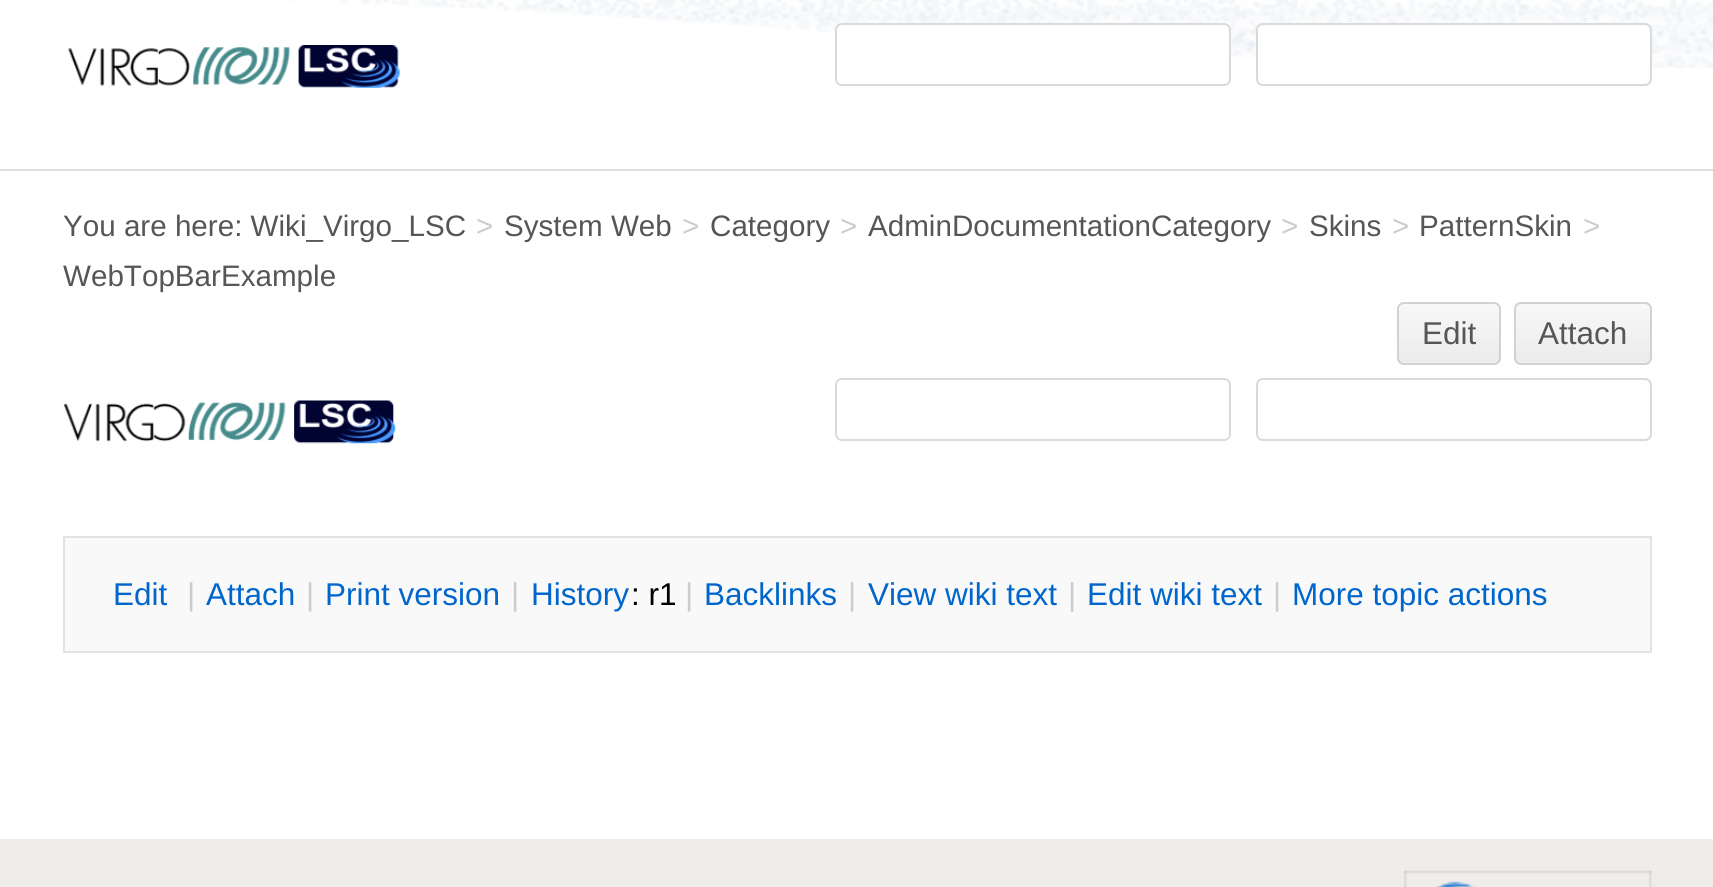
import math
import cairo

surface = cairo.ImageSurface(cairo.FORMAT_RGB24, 1713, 887)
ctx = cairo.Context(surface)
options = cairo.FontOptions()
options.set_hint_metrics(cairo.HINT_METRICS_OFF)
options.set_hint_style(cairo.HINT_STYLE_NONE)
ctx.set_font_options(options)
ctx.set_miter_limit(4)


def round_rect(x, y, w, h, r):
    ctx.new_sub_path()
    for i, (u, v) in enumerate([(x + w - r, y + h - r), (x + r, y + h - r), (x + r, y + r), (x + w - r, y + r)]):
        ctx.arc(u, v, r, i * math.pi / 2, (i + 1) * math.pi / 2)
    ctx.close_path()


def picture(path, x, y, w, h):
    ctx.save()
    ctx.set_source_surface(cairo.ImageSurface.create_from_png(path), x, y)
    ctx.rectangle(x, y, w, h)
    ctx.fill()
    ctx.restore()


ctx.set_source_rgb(1, 1, 1)
ctx.paint()
ctx.set_source_rgb(0.875, 0.875, 0.875)
ctx.rectangle(0, 169, 1713, 2)
ctx.fill()
picture("img1.png", 0, 0, 1713, 169)
picture("img2.png", 67, 45, 333, 43)
ctx.set_source_rgb(1, 1, 1)
round_rect(836, 24, 394, 61, 6)
ctx.fill_preserve()
ctx.set_source_rgb(0.855, 0.855, 0.855)
ctx.stroke()
ctx.set_source_rgb(1, 1, 1)
round_rect(1257, 24, 394, 61, 6)
ctx.fill_preserve()
ctx.set_source_rgb(0.855, 0.855, 0.855)
ctx.stroke()
ctx.select_font_face("Liberation Sans")
ctx.set_font_size(29.6)
ctx.set_source_rgb(0.337, 0.337, 0.337)
ctx.move_to(63, 236)
ctx.show_text("You are here: Wiki_Virgo_LSC")
ctx.set_source_rgb(0.8, 0.8, 0.8)
ctx.move_to(476, 236)
ctx.show_text(">")
ctx.set_source_rgb(0.337, 0.337, 0.337)
ctx.move_to(504, 236)
ctx.show_text("System Web")
ctx.set_source_rgb(0.8, 0.8, 0.8)
ctx.move_to(682, 236)
ctx.show_text(">")
ctx.set_source_rgb(0.337, 0.337, 0.337)
ctx.move_to(710, 236)
ctx.show_text("Category")
ctx.set_source_rgb(0.8, 0.8, 0.8)
ctx.move_to(840, 236)
ctx.show_text(">")
ctx.set_source_rgb(0.337, 0.337, 0.337)
ctx.move_to(868, 236)
ctx.show_text("AdminDocumentationCategory")
ctx.set_source_rgb(0.8, 0.8, 0.8)
ctx.move_to(1281, 236)
ctx.show_text(">")
ctx.set_source_rgb(0.337, 0.337, 0.337)
ctx.move_to(1309, 236)
ctx.show_text("Skins")
ctx.set_source_rgb(0.8, 0.8, 0.8)
ctx.move_to(1392, 236)
ctx.show_text(">")
ctx.set_source_rgb(0.337, 0.337, 0.337)
ctx.move_to(1419, 236)
ctx.show_text("PatternSkin")
ctx.set_source_rgb(0.8, 0.8, 0.8)
ctx.move_to(1583, 236)
ctx.show_text(">")
ctx.set_source_rgb(0.337, 0.337, 0.337)
ctx.move_to(63, 286)
ctx.show_text("WebTopBarExample")
ctx.set_source_rgb(0.953, 0.953, 0.953)
round_rect(1397, 302, 104, 63, 7)
ctx.fill()
ctx.save()
round_rect(1397, 302, 104, 63, 7)
ctx.clip()
gradient = cairo.LinearGradient(1449, 304, 1449, 362)
gradient.add_color_stop_rgba(0, 0.973, 0.973, 0.973, 1)
gradient.add_color_stop_rgba(1, 0.922, 0.922, 0.922, 1)
ctx.set_source(gradient)
ctx.rectangle(1397, 304, 104, 58)
ctx.fill()
ctx.restore()
round_rect(1398, 303, 102, 61, 6)
ctx.set_source_rgb(0.824, 0.824, 0.824)
ctx.stroke()
ctx.set_font_size(31.5)
ctx.set_source_rgb(0.337, 0.337, 0.337)
ctx.move_to(1422, 344)
ctx.show_text("Edit")
ctx.set_source_rgb(0.953, 0.953, 0.953)
round_rect(1514, 302, 138, 63, 7)
ctx.fill()
ctx.save()
round_rect(1514, 302, 138, 63, 7)
ctx.clip()
gradient = cairo.LinearGradient(1583, 304, 1583, 362)
gradient.add_color_stop_rgba(0, 0.973, 0.973, 0.973, 1)
gradient.add_color_stop_rgba(1, 0.922, 0.922, 0.922, 1)
ctx.set_source(gradient)
ctx.rectangle(1514, 304, 138, 58)
ctx.fill()
ctx.restore()
round_rect(1515, 303, 136, 61, 6)
ctx.set_source_rgb(0.824, 0.824, 0.824)
ctx.stroke()
ctx.set_source_rgb(0.337, 0.337, 0.337)
ctx.move_to(1538, 344)
ctx.show_text("Attach")
picture("img3.png", 63, 400, 333, 44)
round_rect(836, 379, 394, 61, 6)
ctx.set_source_rgb(0.855, 0.855, 0.855)
ctx.stroke()
round_rect(1257, 379, 394, 61, 6)
ctx.stroke()
ctx.set_source_rgb(0.976, 0.976, 0.98)
ctx.rectangle(64, 537, 1587, 115)
ctx.fill_preserve()
ctx.set_source_rgb(0.886, 0.886, 0.886)
ctx.stroke()
ctx.set_source_rgb(0, 0.4, 0.8)
ctx.move_to(113, 605)
ctx.show_text("Edit")
ctx.set_source_rgb(0.8, 0.8, 0.8)
ctx.move_to(187, 605)
ctx.show_text("|")
ctx.set_source_rgb(0, 0.4, 0.8)
ctx.move_to(206, 605)
ctx.show_text("Attach")
ctx.set_source_rgb(0.8, 0.8, 0.8)
ctx.move_to(306, 605)
ctx.show_text("|")
ctx.set_source_rgb(0, 0.4, 0.8)
ctx.move_to(325, 605)
ctx.show_text("Print version")
ctx.set_source_rgb(0.8, 0.8, 0.8)
ctx.move_to(511, 605)
ctx.show_text("|")
ctx.set_source_rgb(0, 0.4, 0.8)
ctx.move_to(531, 605)
ctx.show_text("History")
ctx.set_source_rgb(0, 0, 0)
ctx.move_to(631, 605)
ctx.show_text(": r1")
ctx.set_source_rgb(0.8, 0.8, 0.8)
ctx.move_to(685, 605)
ctx.show_text("|")
ctx.set_source_rgb(0, 0.4, 0.8)
ctx.move_to(704, 605)
ctx.show_text("Backlinks")
ctx.set_source_rgb(0.8, 0.8, 0.8)
ctx.move_to(848, 605)
ctx.show_text("|")
ctx.set_source_rgb(0, 0.4, 0.8)
ctx.move_to(868, 605)
ctx.show_text("View wiki text")
ctx.set_source_rgb(0.8, 0.8, 0.8)
ctx.move_to(1068, 605)
ctx.show_text("|")
ctx.set_source_rgb(0, 0.4, 0.8)
ctx.move_to(1087, 605)
ctx.show_text("Edit wiki text")
ctx.set_source_rgb(0.8, 0.8, 0.8)
ctx.move_to(1273, 605)
ctx.show_text("|")
ctx.set_source_rgb(0, 0.4, 0.8)
ctx.move_to(1292, 605)
ctx.show_text("More topic actions")
ctx.set_source_rgb(0.933, 0.929, 0.925)
ctx.rectangle(0, 839, 1713, 48)
ctx.fill()
picture("img4.png", 1404, 870, 248, 17)
surface.write_to_png("page.png")
